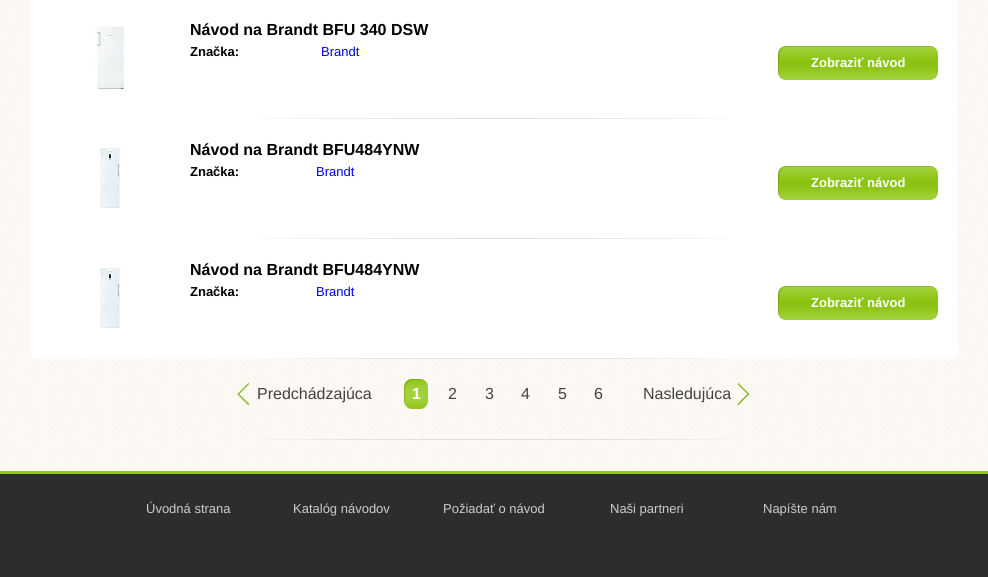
import math
import cairo

surface = cairo.ImageSurface(cairo.FORMAT_RGB24, 988, 577)
ctx = cairo.Context(surface)
options = cairo.FontOptions()
options.set_hint_metrics(cairo.HINT_METRICS_OFF)
options.set_hint_style(cairo.HINT_STYLE_NONE)
ctx.set_font_options(options)
ctx.set_miter_limit(4)


def round_rect(x, y, w, h, r):
    ctx.new_sub_path()
    for i, (u, v) in enumerate([(x + w - r, y + h - r), (x + r, y + h - r), (x + r, y + r), (x + w - r, y + r)]):
        ctx.arc(u, v, r, i * math.pi / 2, (i + 1) * math.pi / 2)
    ctx.close_path()


def picture(path, x, y, w, h):
    ctx.save()
    ctx.set_source_surface(cairo.ImageSurface.create_from_png(path), x, y)
    ctx.rectangle(x, y, w, h)
    ctx.fill()
    ctx.restore()


ctx.set_source_rgb(1, 1, 1)
ctx.paint()
picture("img1.png", 0, 0, 988, 471)
ctx.set_source_rgb(1, 1, 1)
round_rect(30, -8, 928, 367, 8)
ctx.fill()
picture("img2.png", 260, 118, 470, 1)
picture("img3.png", 95, 25, 29, 64)
ctx.select_font_face("Liberation Sans", cairo.FONT_SLANT_NORMAL, cairo.FONT_WEIGHT_BOLD)
ctx.set_font_size(16)
ctx.set_source_rgb(0, 0, 0)
ctx.move_to(190, 35)
ctx.show_text("Návod na Brandt BFU 340 DSW")
ctx.set_font_size(13)
ctx.move_to(190, 56)
ctx.show_text("Značka:")
ctx.select_font_face("Liberation Sans")
ctx.set_source_rgb(0, 0, 0.933)
ctx.move_to(321, 56)
ctx.show_text("Brandt")
picture("img4.png", 778, 46, 160, 34)
ctx.set_source_rgba(0, 0, 0, 0.14)
ctx.new_path()
ctx.move_to(787, 47)
ctx.line_to(931, 47)
ctx.curve_to(933, 47, 935, 48, 937, 50)
ctx.curve_to(935, 48, 933, 46, 930, 46)
ctx.line_to(786, 46)
ctx.curve_to(782, 46, 778, 50, 778, 54)
ctx.line_to(778, 72)
ctx.curve_to(778, 75, 780, 77, 782, 79)
ctx.curve_to(778, 75, 779, 69, 779, 64)
ctx.curve_to(779, 58, 778, 47, 787, 47)
ctx.close_path()
ctx.fill()
ctx.select_font_face("Liberation Sans", cairo.FONT_SLANT_NORMAL, cairo.FONT_WEIGHT_BOLD)
ctx.set_source_rgb(1, 1, 1)
ctx.move_to(811, 67)
ctx.show_text("Zobraziť návod")
picture("img2.png", 260, 238, 470, 1)
picture("img5.png", 99, 145, 23, 64)
ctx.set_font_size(16)
ctx.set_source_rgb(0, 0, 0)
ctx.move_to(190, 155)
ctx.show_text("Návod na Brandt BFU484YNW")
ctx.set_font_size(13)
ctx.move_to(190, 176)
ctx.show_text("Značka:")
ctx.select_font_face("Liberation Sans")
ctx.set_source_rgb(0, 0, 0.933)
ctx.move_to(316, 176)
ctx.show_text("Brandt")
picture("img4.png", 778, 166, 160, 34)
ctx.set_source_rgba(0, 0, 0, 0.14)
ctx.new_path()
ctx.move_to(787, 167)
ctx.line_to(931, 167)
ctx.curve_to(933, 167, 935, 168, 937, 170)
ctx.curve_to(935, 168, 933, 166, 930, 166)
ctx.line_to(786, 166)
ctx.curve_to(782, 166, 778, 170, 778, 174)
ctx.line_to(778, 192)
ctx.curve_to(778, 195, 780, 197, 782, 199)
ctx.curve_to(778, 195, 779, 189, 779, 184)
ctx.curve_to(779, 178, 778, 167, 787, 167)
ctx.close_path()
ctx.fill()
ctx.select_font_face("Liberation Sans", cairo.FONT_SLANT_NORMAL, cairo.FONT_WEIGHT_BOLD)
ctx.set_source_rgb(1, 1, 1)
ctx.move_to(811, 187)
ctx.show_text("Zobraziť návod")
picture("img2.png", 260, 358, 470, 1)
picture("img5.png", 99, 265, 23, 64)
ctx.set_font_size(16)
ctx.set_source_rgb(0, 0, 0)
ctx.move_to(190, 275)
ctx.show_text("Návod na Brandt BFU484YNW")
ctx.set_font_size(13)
ctx.move_to(190, 296)
ctx.show_text("Značka:")
ctx.select_font_face("Liberation Sans")
ctx.set_source_rgb(0, 0, 0.933)
ctx.move_to(316, 296)
ctx.show_text("Brandt")
picture("img4.png", 778, 286, 160, 34)
ctx.set_source_rgba(0, 0, 0, 0.14)
ctx.new_path()
ctx.move_to(787, 287)
ctx.line_to(931, 287)
ctx.curve_to(933, 287, 935, 288, 937, 290)
ctx.curve_to(935, 288, 933, 286, 930, 286)
ctx.line_to(786, 286)
ctx.curve_to(782, 286, 778, 290, 778, 294)
ctx.line_to(778, 312)
ctx.curve_to(778, 315, 780, 317, 782, 319)
ctx.curve_to(778, 315, 779, 309, 779, 304)
ctx.curve_to(779, 298, 778, 287, 787, 287)
ctx.close_path()
ctx.fill()
ctx.select_font_face("Liberation Sans", cairo.FONT_SLANT_NORMAL, cairo.FONT_WEIGHT_BOLD)
ctx.set_source_rgb(1, 1, 1)
ctx.move_to(811, 307)
ctx.show_text("Zobraziť návod")
picture("img6.png", 237, 383, 12, 23)
ctx.select_font_face("Liberation Sans")
ctx.set_font_size(16)
ctx.set_source_rgb(0.255, 0.255, 0.255)
ctx.move_to(257, 399)
ctx.show_text("Predchádzajúca")
picture("img7.png", 404, 379, 24, 30)
ctx.set_source_rgba(0, 0, 0, 0.14)
ctx.new_path()
ctx.move_to(413, 380)
ctx.curve_to(417.5, 380, 422.5, 378.5, 426, 381.5)
ctx.curve_to(424.5, 380, 422.5, 379, 420, 379)
ctx.line_to(412, 379)
ctx.curve_to(407.5, 379, 404, 382.5, 404, 387)
ctx.line_to(404, 401)
ctx.curve_to(404, 403, 405, 405, 406, 406.5)
ctx.line_to(405, 404)
ctx.line_to(405, 393.5)
ctx.curve_to(405, 387.5, 405, 380, 413, 380)
ctx.close_path()
ctx.fill()
ctx.select_font_face("Liberation Sans", cairo.FONT_SLANT_NORMAL, cairo.FONT_WEIGHT_BOLD)
ctx.set_source_rgb(1, 1, 1)
ctx.move_to(412, 399)
ctx.show_text("1")
ctx.select_font_face("Liberation Sans")
ctx.set_source_rgb(0.255, 0.255, 0.255)
ctx.move_to(448, 399)
ctx.show_text("2")
ctx.move_to(485, 399)
ctx.show_text("3")
ctx.move_to(521, 399)
ctx.show_text("4")
ctx.move_to(558, 399)
ctx.show_text("5")
ctx.move_to(594, 399)
ctx.show_text("6")
ctx.move_to(643, 399)
ctx.show_text("Nasledujúca")
picture("img8.png", 738, 383, 12, 23)
picture("img9.png", 260, 439, 470, 1)
ctx.set_source_rgb(0.176, 0.176, 0.176)
ctx.rectangle(0, 474, 988, 103)
ctx.fill()
ctx.set_source_rgb(0.565, 0.776, 0.106)
ctx.rectangle(0, 471, 988, 3)
ctx.fill()
ctx.set_font_size(13)
ctx.set_source_rgb(0.8, 0.8, 0.8)
ctx.move_to(146, 513)
ctx.show_text("Úvodná strana")
ctx.move_to(293, 513)
ctx.show_text("Katalóg návodov")
ctx.move_to(443, 513)
ctx.show_text("Požiadať o návod")
ctx.move_to(610, 513)
ctx.show_text("Naši partneri")
ctx.move_to(763, 513)
ctx.show_text("Napíšte nám")
surface.write_to_png("page.png")
